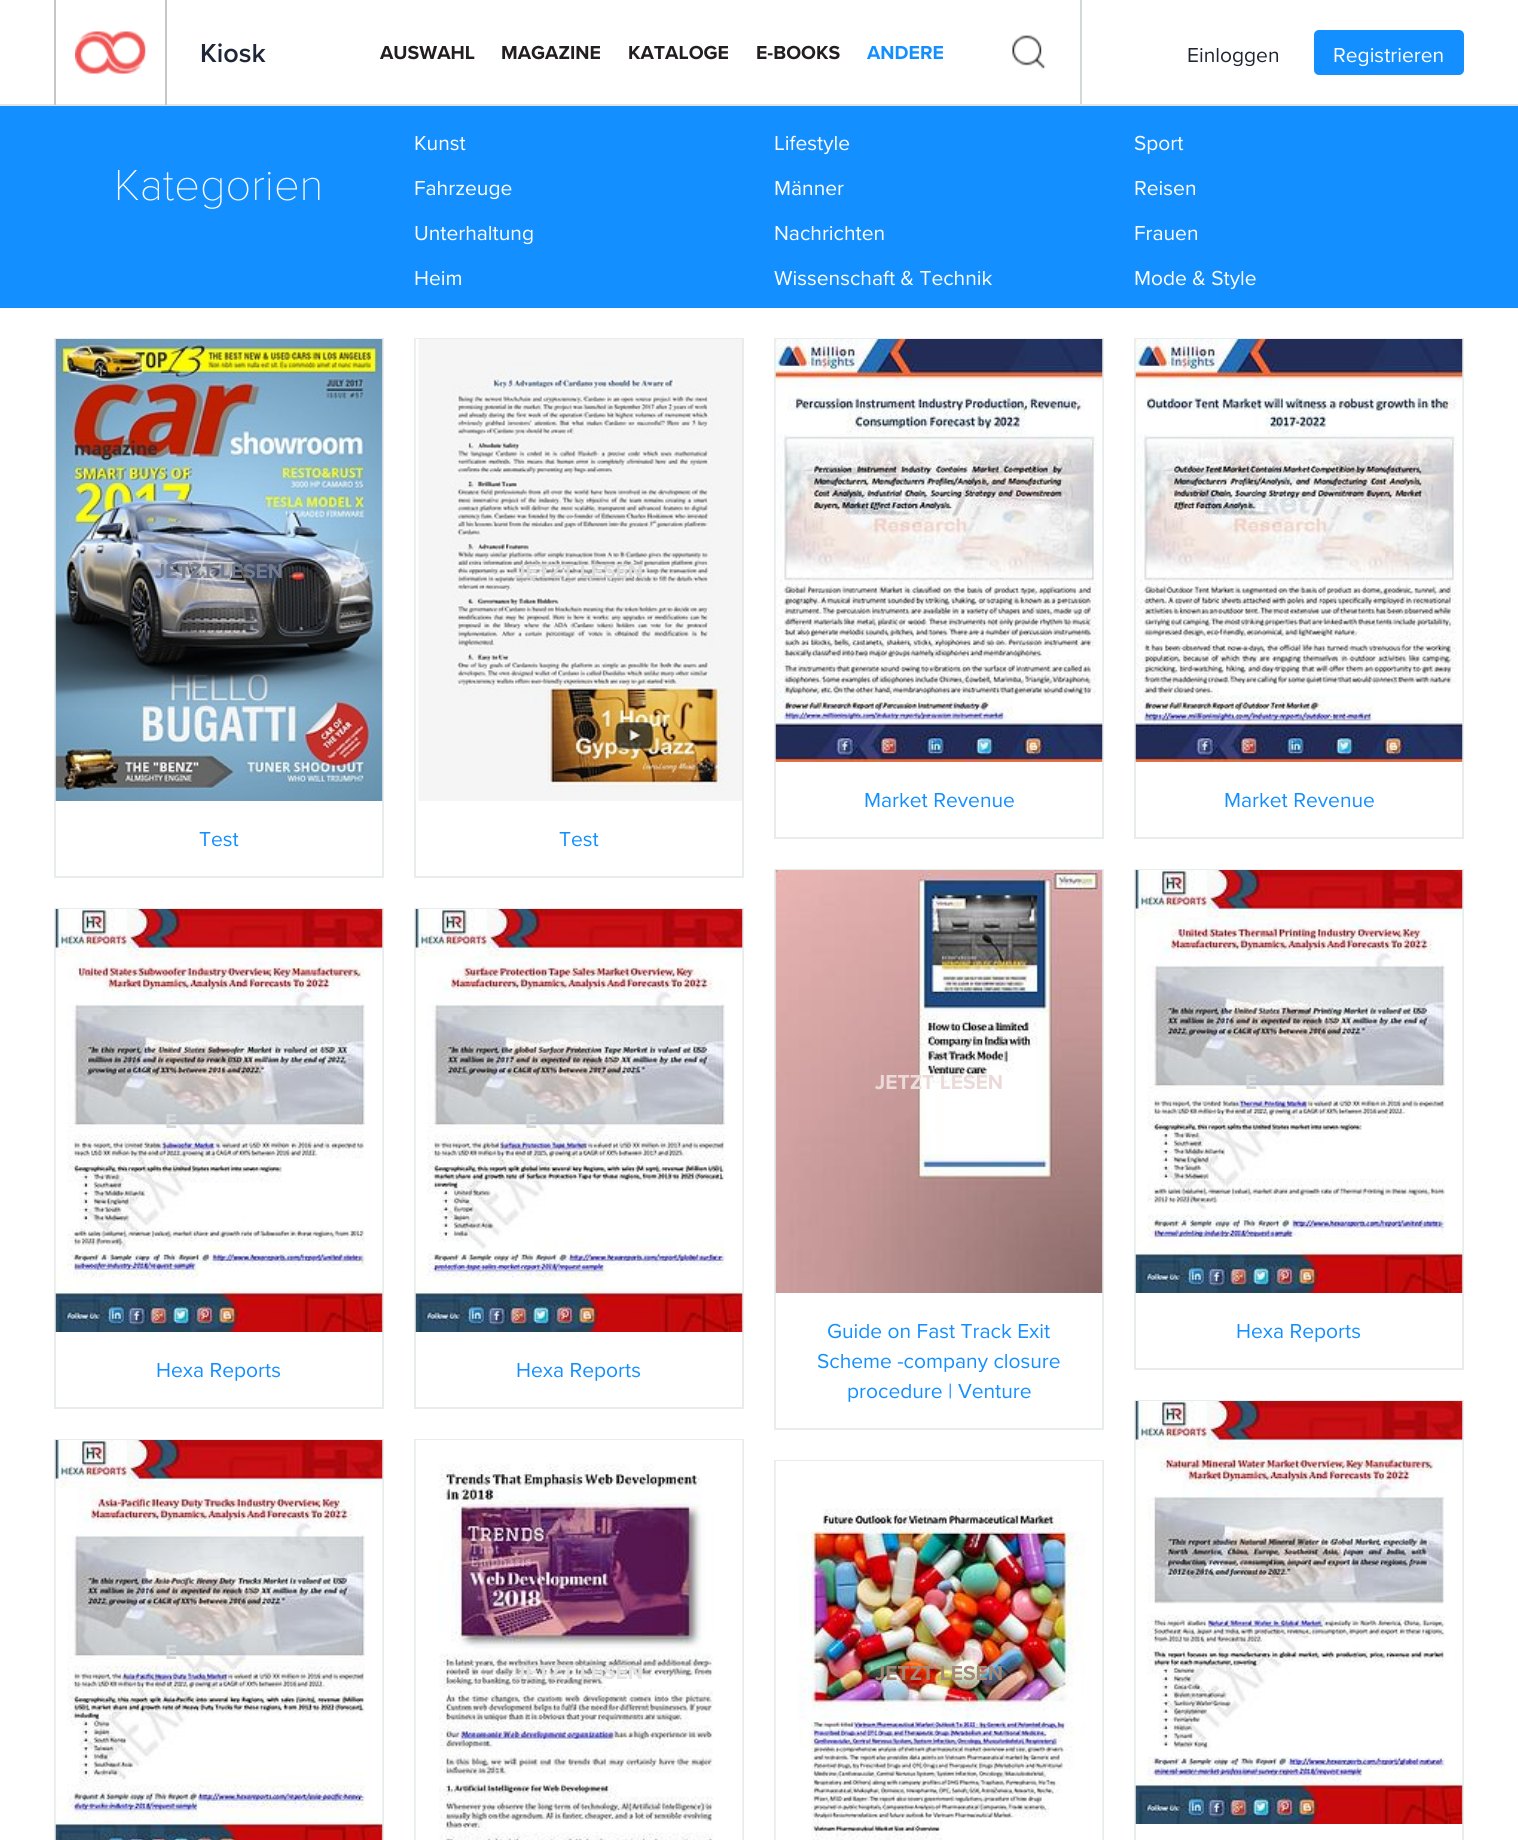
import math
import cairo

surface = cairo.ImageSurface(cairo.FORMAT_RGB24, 1518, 1840)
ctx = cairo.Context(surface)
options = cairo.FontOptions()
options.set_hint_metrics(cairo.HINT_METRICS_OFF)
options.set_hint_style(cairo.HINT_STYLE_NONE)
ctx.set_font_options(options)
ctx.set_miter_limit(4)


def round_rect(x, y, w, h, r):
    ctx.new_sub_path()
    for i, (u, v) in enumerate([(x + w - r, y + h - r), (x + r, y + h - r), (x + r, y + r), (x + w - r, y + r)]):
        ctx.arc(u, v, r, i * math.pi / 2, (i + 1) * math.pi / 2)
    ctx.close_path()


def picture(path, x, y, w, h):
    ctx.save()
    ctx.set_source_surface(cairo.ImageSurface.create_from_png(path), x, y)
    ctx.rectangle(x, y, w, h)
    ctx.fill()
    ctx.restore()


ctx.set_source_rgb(1, 1, 1)
ctx.paint()
ctx.set_source_rgb(0.898, 0.898, 0.898)
ctx.rectangle(0, 104, 1518, 2)
ctx.fill()
ctx.set_source_rgb(0.776, 0.776, 0.776)
ctx.rectangle(165, 0, 2, 105)
ctx.fill()
ctx.rectangle(54, 0, 2, 105)
ctx.fill()
picture("img1.png", 75, 31, 71, 43)
ctx.select_font_face("Proxima Nova SemiBold")
ctx.set_font_size(27)
ctx.set_source_rgb(0.118, 0.149, 0.22)
ctx.move_to(200, 62)
ctx.show_text("Kiosk")
ctx.select_font_face("Proxima Nova", cairo.FONT_SLANT_NORMAL, cairo.FONT_WEIGHT_BOLD)
ctx.set_font_size(19.5)
ctx.set_source_rgb(0.137, 0.122, 0.125)
ctx.move_to(380, 59)
ctx.show_text("AUSWAHL")
ctx.move_to(501, 59)
ctx.show_text("MAGAZINE")
ctx.move_to(628, 59)
ctx.show_text("KATALOGE")
ctx.move_to(756, 59)
ctx.show_text("E-BOOKS")
ctx.set_source_rgb(0.082, 0.561, 1)
ctx.move_to(867, 59)
ctx.show_text("ANDERE")
ctx.set_source_rgb(0.824, 0.843, 0.851)
ctx.rectangle(1080, 0, 2, 104)
ctx.fill()
picture("img2.png", 1012, 35, 34, 34)
ctx.select_font_face("Proxima Nova")
ctx.set_font_size(21)
ctx.set_source_rgb(0.125, 0.145, 0.196)
ctx.move_to(1187, 62)
ctx.show_text("Einloggen")
ctx.set_source_rgb(0.082, 0.561, 1)
round_rect(1314, 30, 150, 45, 5)
ctx.fill()
ctx.set_source_rgb(1, 1, 1)
ctx.move_to(1333, 62)
ctx.show_text("Registrieren")
ctx.set_source_rgb(0.082, 0.561, 1)
ctx.rectangle(0, 106, 1518, 202)
ctx.fill()
ctx.select_font_face("Proxima Nova Thin")
ctx.set_font_size(45)
ctx.set_source_rgb(1, 1, 1)
ctx.move_to(114, 200)
ctx.show_text("Kategorien")
ctx.select_font_face("Proxima Nova")
ctx.set_font_size(21)
ctx.move_to(414, 150)
ctx.show_text("Kunst")
ctx.move_to(414, 195)
ctx.show_text("Fahrzeuge")
ctx.move_to(414, 240)
ctx.show_text("Unterhaltung")
ctx.move_to(414, 285)
ctx.show_text("Heim")
ctx.move_to(774, 150)
ctx.show_text("Lifestyle")
ctx.move_to(774, 195)
ctx.show_text("Männer")
ctx.move_to(774, 240)
ctx.show_text("Nachrichten")
ctx.move_to(774, 285)
ctx.show_text("Wissenschaft & Technik")
ctx.move_to(1134, 150)
ctx.show_text("Sport")
ctx.move_to(1134, 195)
ctx.show_text("Reisen")
ctx.move_to(1134, 240)
ctx.show_text("Frauen")
ctx.move_to(1134, 285)
ctx.show_text("Mode & Style")
ctx.rectangle(55, 339, 328, 538)
ctx.set_source_rgb(0.91, 0.922, 0.922)
ctx.stroke()
picture("img3.png", 55, 339, 328, 462)
ctx.select_font_face("Proxima Nova", cairo.FONT_SLANT_NORMAL, cairo.FONT_WEIGHT_BOLD)
ctx.set_source_rgb(0.459, 0.486, 0.553)
ctx.move_to(155, 578)
ctx.show_text("JETZT LESEN")
ctx.select_font_face("Proxima Nova")
ctx.set_source_rgb(0.082, 0.561, 1)
ctx.move_to(199, 846)
ctx.show_text("Test")
ctx.rectangle(415, 339, 328, 538)
ctx.set_source_rgb(0.91, 0.922, 0.922)
ctx.stroke()
picture("img4.png", 415, 339, 327, 462)
ctx.select_font_face("Proxima Nova", cairo.FONT_SLANT_NORMAL, cairo.FONT_WEIGHT_BOLD)
ctx.set_source_rgb(0.867, 0.867, 0.867)
ctx.move_to(515, 578)
ctx.show_text("JETZT LESEN")
ctx.select_font_face("Proxima Nova")
ctx.set_source_rgb(0.082, 0.561, 1)
ctx.move_to(559, 846)
ctx.show_text("Test")
ctx.rectangle(775, 339, 328, 499)
ctx.set_source_rgb(0.91, 0.922, 0.922)
ctx.stroke()
picture("img5.png", 775, 339, 328, 423)
ctx.set_source_rgb(0.082, 0.561, 1)
ctx.move_to(864, 807)
ctx.show_text("Market Revenue")
ctx.rectangle(1135, 339, 328, 499)
ctx.set_source_rgb(0.91, 0.922, 0.922)
ctx.stroke()
picture("img6.png", 1135, 339, 328, 423)
ctx.set_source_rgb(0.082, 0.561, 1)
ctx.move_to(1224, 807)
ctx.show_text("Market Revenue")
ctx.rectangle(55, 909, 328, 499)
ctx.set_source_rgb(0.91, 0.922, 0.922)
ctx.stroke()
picture("img7.png", 55, 909, 328, 423)
ctx.select_font_face("Proxima Nova", cairo.FONT_SLANT_NORMAL, cairo.FONT_WEIGHT_BOLD)
ctx.set_source_rgb(0.835, 0.847, 0.859)
ctx.move_to(165, 1128)
ctx.show_text("E")
ctx.select_font_face("Proxima Nova")
ctx.set_source_rgb(0.082, 0.561, 1)
ctx.move_to(156, 1377)
ctx.show_text("Hexa Reports")
ctx.rectangle(415, 909, 328, 499)
ctx.set_source_rgb(0.91, 0.922, 0.922)
ctx.stroke()
picture("img8.png", 415, 909, 328, 423)
ctx.select_font_face("Proxima Nova", cairo.FONT_SLANT_NORMAL, cairo.FONT_WEIGHT_BOLD)
ctx.set_source_rgb(0.835, 0.847, 0.859)
ctx.move_to(525, 1128)
ctx.show_text("E")
ctx.select_font_face("Proxima Nova")
ctx.set_source_rgb(0.082, 0.561, 1)
ctx.move_to(516, 1377)
ctx.show_text("Hexa Reports")
ctx.rectangle(775, 870, 328, 559)
ctx.set_source_rgb(0.91, 0.922, 0.922)
ctx.stroke()
picture("img9.png", 775, 870, 328, 423)
ctx.select_font_face("Proxima Nova", cairo.FONT_SLANT_NORMAL, cairo.FONT_WEIGHT_BOLD)
ctx.set_source_rgb(0.918, 0.855, 0.855)
ctx.move_to(875, 1089)
ctx.show_text("JETZT LESEN")
ctx.select_font_face("Proxima Nova")
ctx.set_source_rgb(0.082, 0.561, 1)
ctx.move_to(827, 1338)
ctx.show_text("Guide on Fast Track Exit")
ctx.move_to(817, 1368)
ctx.show_text("Scheme -company closure")
ctx.move_to(847, 1398)
ctx.show_text("procedure | Venture")
ctx.rectangle(1135, 870, 328, 499)
ctx.set_source_rgb(0.91, 0.922, 0.922)
ctx.stroke()
picture("img10.png", 1135, 870, 328, 423)
ctx.select_font_face("Proxima Nova", cairo.FONT_SLANT_NORMAL, cairo.FONT_WEIGHT_BOLD)
ctx.set_source_rgb(0.835, 0.847, 0.859)
ctx.move_to(1245, 1089)
ctx.show_text("E")
ctx.select_font_face("Proxima Nova")
ctx.set_source_rgb(0.082, 0.561, 1)
ctx.move_to(1236, 1338)
ctx.show_text("Hexa Reports")
ctx.rectangle(55, 1440, 328, 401)
ctx.set_source_rgb(0.91, 0.922, 0.922)
ctx.stroke()
picture("img11.png", 55, 1440, 328, 400)
ctx.select_font_face("Proxima Nova", cairo.FONT_SLANT_NORMAL, cairo.FONT_WEIGHT_BOLD)
ctx.set_source_rgb(0.835, 0.847, 0.859)
ctx.move_to(165, 1659)
ctx.show_text("E")
ctx.rectangle(1135, 1401, 328, 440)
ctx.set_source_rgb(0.91, 0.922, 0.922)
ctx.stroke()
picture("img12.png", 1135, 1401, 328, 423)
ctx.rectangle(415, 1440, 328, 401)
ctx.stroke()
picture("img13.png", 415, 1440, 328, 400)
ctx.set_source_rgb(0.894, 0.894, 0.894)
ctx.move_to(515, 1679)
ctx.show_text("JETZT LESEN")
ctx.rectangle(775, 1461, 328, 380)
ctx.set_source_rgb(0.91, 0.922, 0.922)
ctx.stroke()
picture("img14.png", 775, 1461, 328, 379)
ctx.set_source_rgb(0.647, 0.533, 0.463)
ctx.move_to(875, 1680)
ctx.show_text("JETZT LESEN")
surface.write_to_png("page.png")
